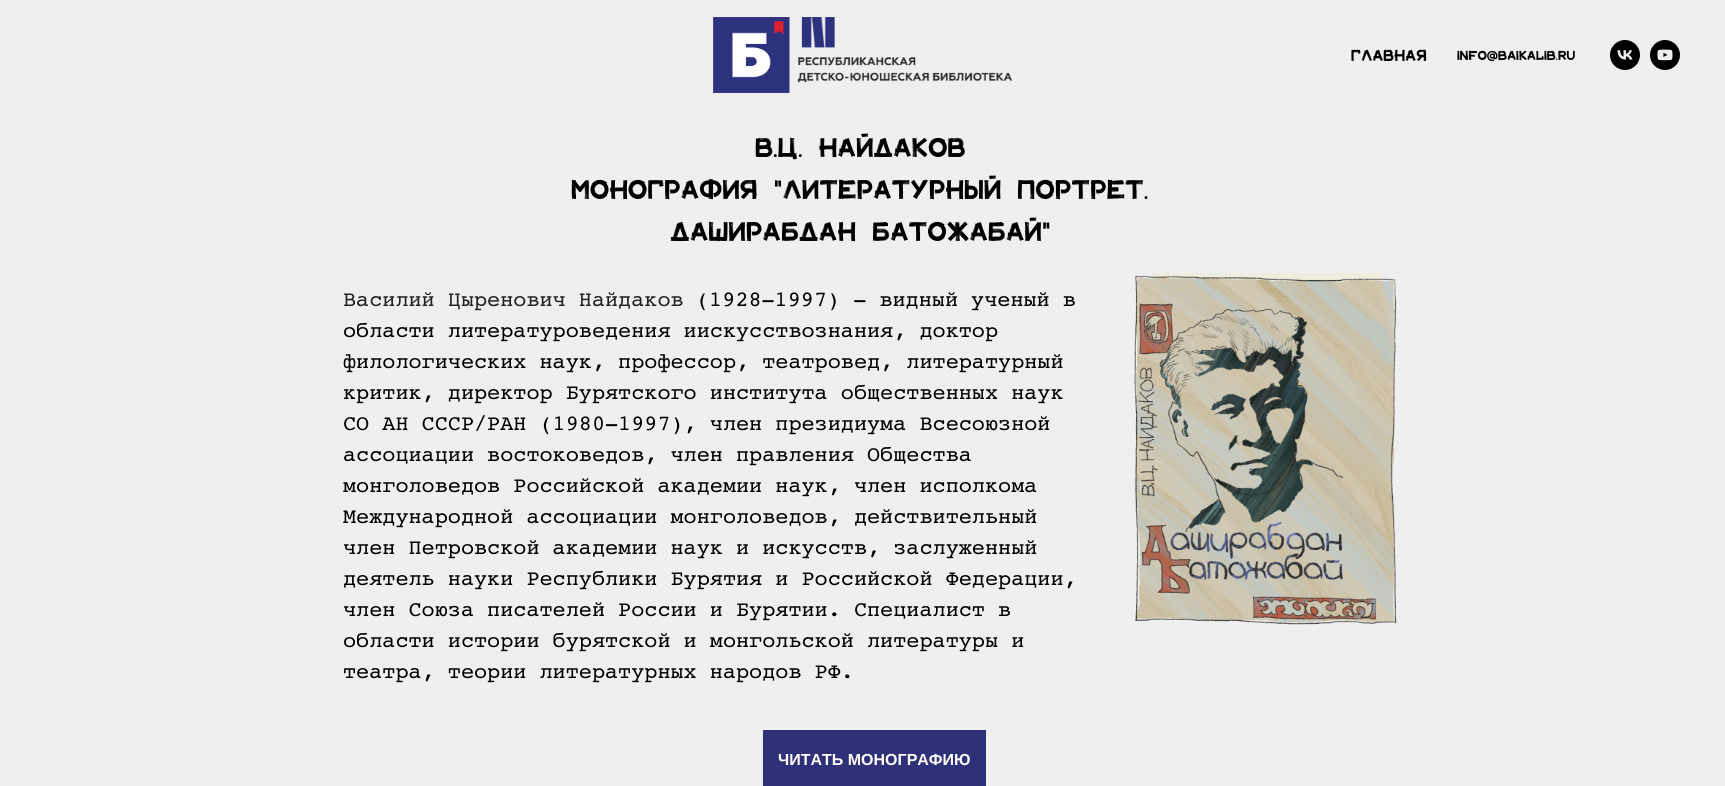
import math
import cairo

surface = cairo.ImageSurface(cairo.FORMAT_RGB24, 1725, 786)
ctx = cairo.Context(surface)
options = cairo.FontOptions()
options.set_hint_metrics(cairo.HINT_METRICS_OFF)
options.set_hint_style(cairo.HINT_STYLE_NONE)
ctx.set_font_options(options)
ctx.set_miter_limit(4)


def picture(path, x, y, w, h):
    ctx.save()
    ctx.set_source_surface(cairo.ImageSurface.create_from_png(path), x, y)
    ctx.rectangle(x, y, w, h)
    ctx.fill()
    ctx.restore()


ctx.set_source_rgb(0.937, 0.937, 0.937)
ctx.paint()
picture("img1.png", 713, 17, 299, 76)
ctx.select_font_face("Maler")
ctx.set_font_size(16)
ctx.set_source_rgb(0, 0, 0)
ctx.move_to(1351, 61)
ctx.show_text("ГЛАВНАЯ")
ctx.set_font_size(13)
ctx.move_to(1457, 60)
ctx.show_text("info@baikalib.ru")
picture("img2.png", 1610, 40, 30, 30)
picture("img3.png", 1650, 40, 30, 30)
ctx.set_font_size(27)
ctx.move_to(755, 157)
ctx.show_text("в.ц. нАЙДАКОВ")
ctx.move_to(571, 199)
ctx.show_text("МОНОГРАФИЯ \"ЛИТЕРАТУРНЫЙ ПОРТРЕТ.")
ctx.move_to(670, 241)
ctx.show_text("ДАШИРАБДАН БАТОЖАБАЙ\"")
ctx.select_font_face("Courier New")
ctx.set_font_size(20)
ctx.set_source_rgb(0.125, 0.129, 0.133)
ctx.move_to(343, 306)
ctx.show_text("Василий Цыренович Найдаков")
ctx.set_source_rgb(0, 0, 0)
ctx.move_to(696, 306)
ctx.show_text("(1928—1997) — видный ученый в")
ctx.move_to(343, 337)
ctx.show_text("области литературоведения иискусствознания, доктор")
ctx.move_to(343, 368)
ctx.show_text("филологических наук, профессор, театровед, литературный")
ctx.move_to(343, 399)
ctx.show_text("критик, директор Бурятского института общественных наук")
ctx.move_to(343, 430)
ctx.show_text("СО АН СССР/РАН (1980—1997), член президиума Всесоюзной")
ctx.move_to(343, 461)
ctx.show_text("ассоциации востоковедов, член правления Общества")
ctx.move_to(343, 492)
ctx.show_text("монголоведов Российской академии наук, член исполкома")
ctx.move_to(343, 523)
ctx.show_text("Международной ассоциации монголоведов, действительный")
ctx.move_to(343, 554)
ctx.show_text("член Петровской академии наук и искусств, заслуженный")
ctx.move_to(343, 585)
ctx.show_text("деятель науки Республики Бурятия и Российской Федерации,")
ctx.move_to(343, 616)
ctx.show_text("член Союза писателей России и Бурятии. Специалист в")
ctx.move_to(343, 647)
ctx.show_text("области истории бурятской и монгольской литературы и")
ctx.move_to(343, 678)
ctx.show_text("театра, теории литературных народов РФ.")
picture("img4.png", 1134, 273, 263, 352)
ctx.set_source_rgb(0.18, 0.192, 0.467)
ctx.rectangle(763, 730, 223, 56)
ctx.fill()
ctx.select_font_face("Liberation Sans", cairo.FONT_SLANT_NORMAL, cairo.FONT_WEIGHT_BOLD)
ctx.set_font_size(16)
ctx.set_source_rgb(1, 1, 1)
ctx.move_to(778, 765)
ctx.show_text("ЧИТАТЬ МОНОГРАФИЮ")
surface.write_to_png("page.png")
